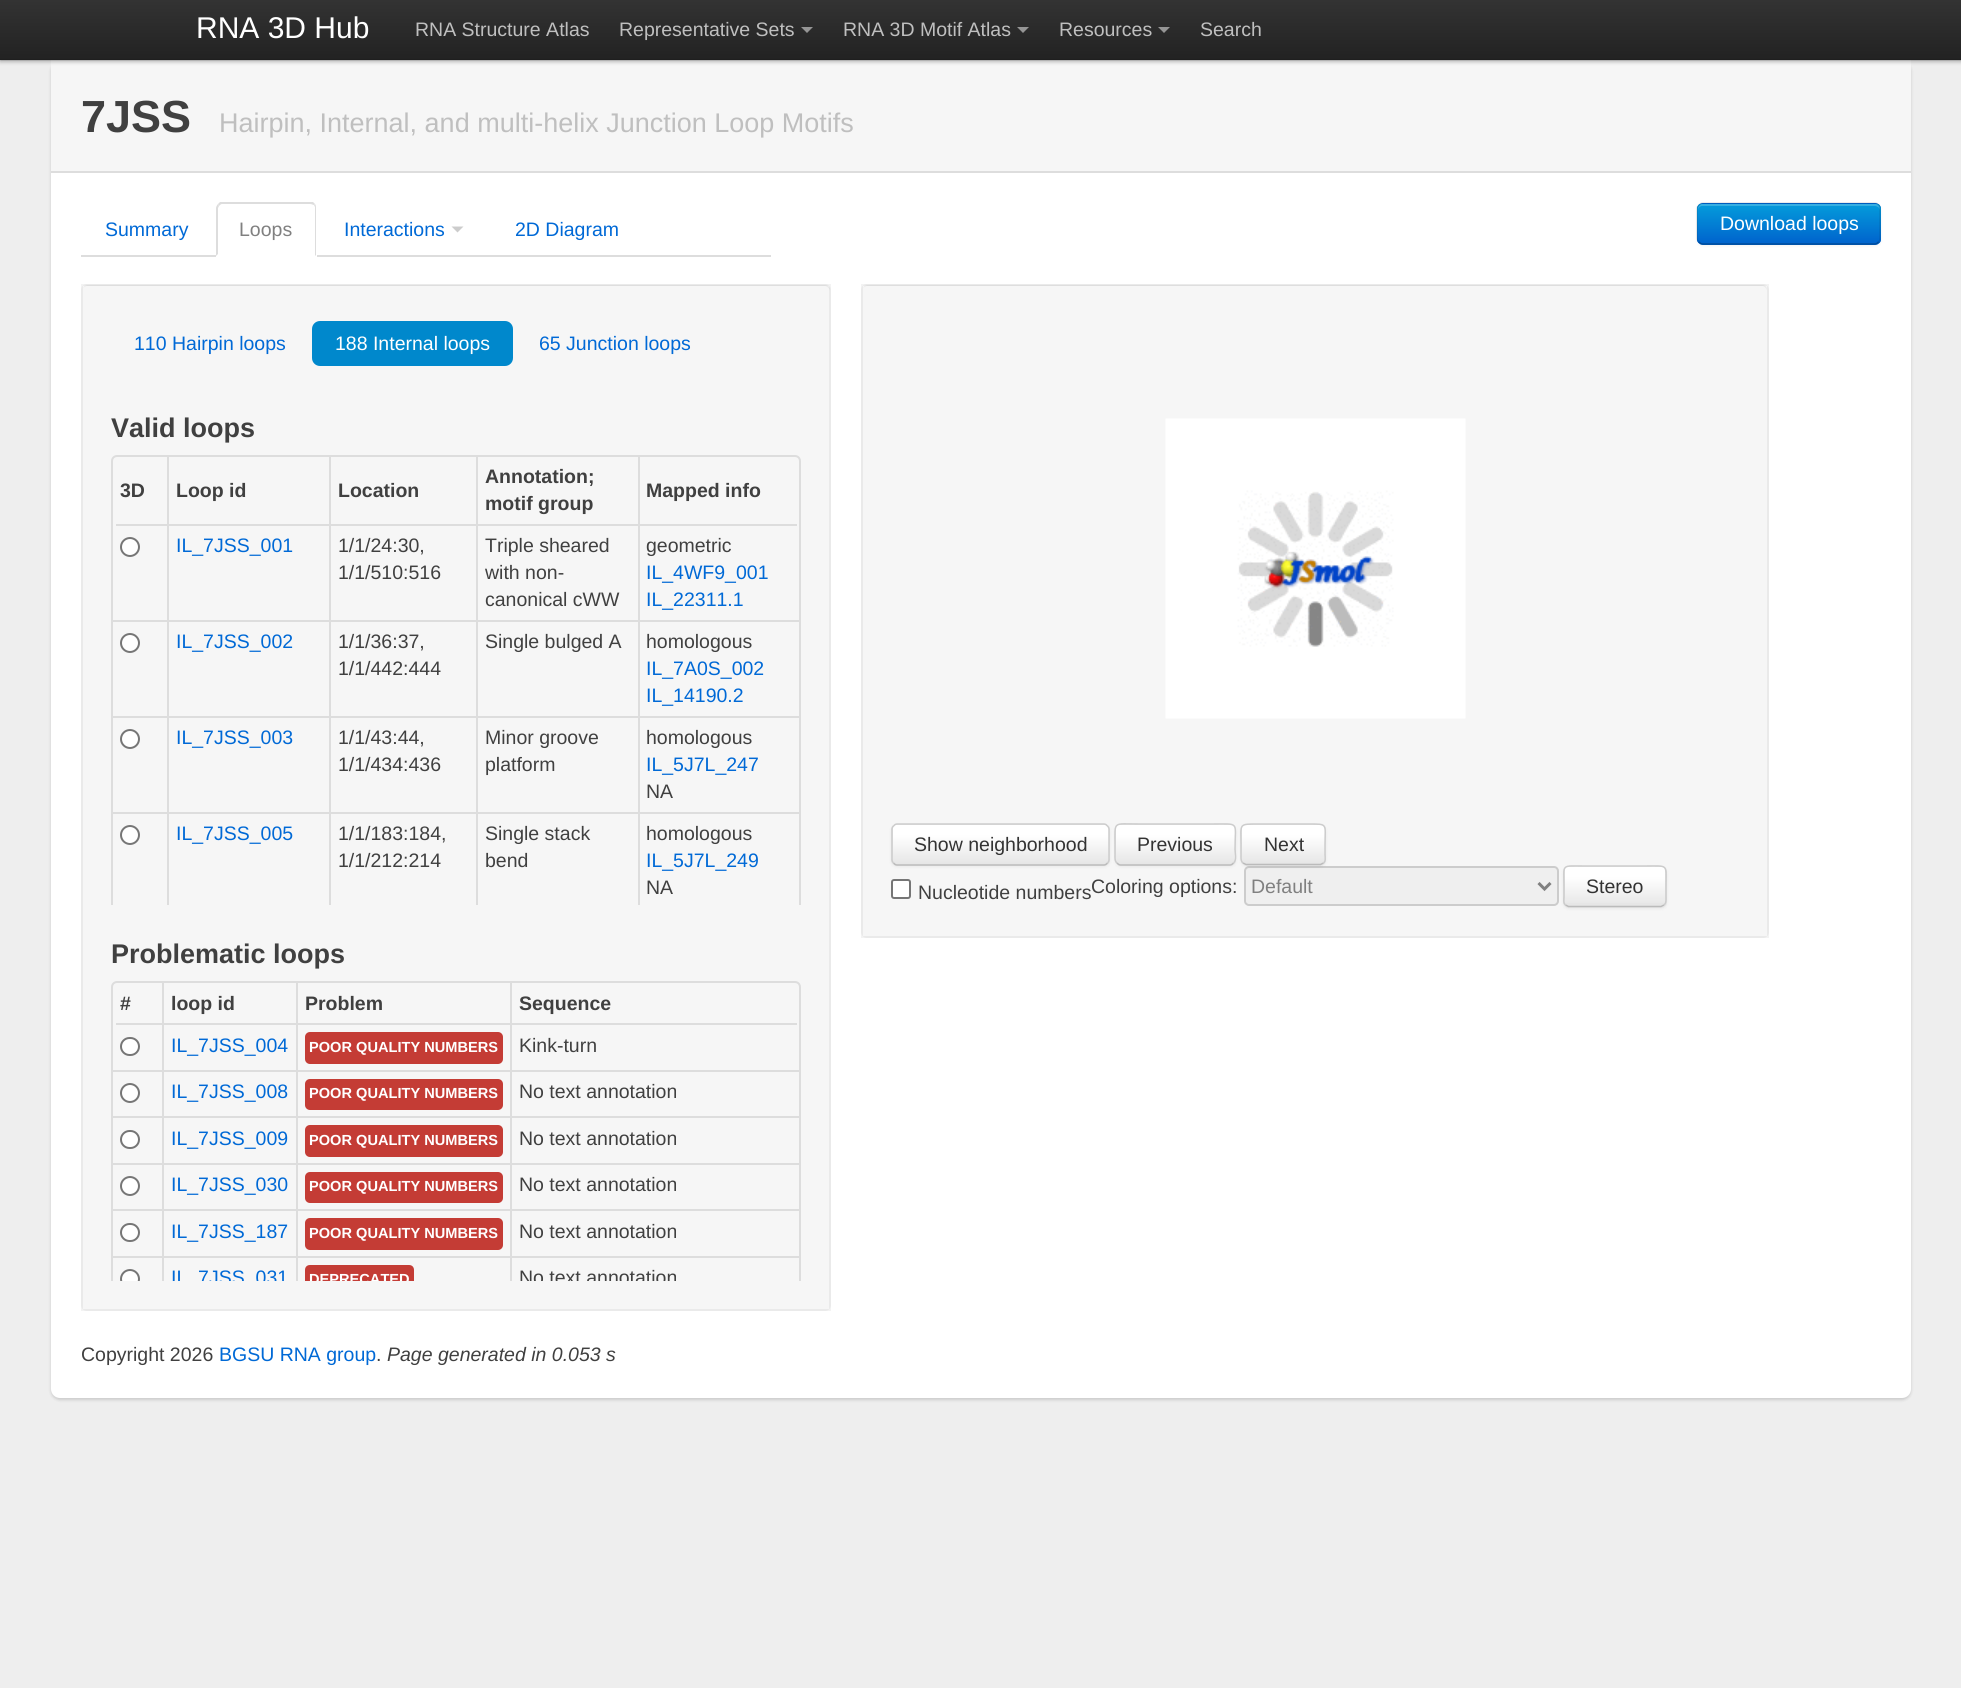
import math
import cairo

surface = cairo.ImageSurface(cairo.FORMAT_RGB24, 1961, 1688)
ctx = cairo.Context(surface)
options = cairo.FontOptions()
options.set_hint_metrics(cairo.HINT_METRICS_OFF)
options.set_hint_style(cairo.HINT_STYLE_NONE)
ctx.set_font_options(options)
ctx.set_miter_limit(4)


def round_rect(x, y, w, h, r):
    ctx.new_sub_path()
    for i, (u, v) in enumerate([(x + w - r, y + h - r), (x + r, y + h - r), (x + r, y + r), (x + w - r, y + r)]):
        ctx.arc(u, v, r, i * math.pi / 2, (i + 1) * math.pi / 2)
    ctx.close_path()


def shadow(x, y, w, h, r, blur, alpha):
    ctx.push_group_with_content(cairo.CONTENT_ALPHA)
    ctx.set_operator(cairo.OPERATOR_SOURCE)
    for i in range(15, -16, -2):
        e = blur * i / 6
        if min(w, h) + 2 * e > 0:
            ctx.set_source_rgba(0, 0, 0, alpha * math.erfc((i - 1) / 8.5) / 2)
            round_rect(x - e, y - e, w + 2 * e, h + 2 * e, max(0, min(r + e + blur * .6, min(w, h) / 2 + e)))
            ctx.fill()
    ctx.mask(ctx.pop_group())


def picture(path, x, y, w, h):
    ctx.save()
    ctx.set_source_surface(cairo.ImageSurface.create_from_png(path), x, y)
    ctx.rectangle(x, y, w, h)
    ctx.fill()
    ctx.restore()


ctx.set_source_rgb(0.933, 0.933, 0.933)
ctx.paint()
ctx.set_source_rgb(0, 0, 0)
shadow(51, 62, 1860, 1338, 9, 1.5, 0.15)
ctx.set_source_rgb(1, 1, 1)
ctx.new_path()
ctx.move_to(51, 60)
ctx.line_to(1911, 60)
ctx.line_to(1911, 1389)
ctx.curve_to(1911, 1394, 1907, 1398, 1902, 1398)
ctx.line_to(60, 1398)
ctx.curve_to(55, 1398, 51, 1394, 51, 1389)
ctx.close_path()
ctx.fill()
ctx.set_source_rgb(0.961, 0.961, 0.961)
ctx.rectangle(51, 60, 1860, 111)
ctx.fill()
ctx.set_source_rgb(0, 0, 0)
shadow(0, 2, 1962, 60, 0, 2, 0.25)
gradient = cairo.LinearGradient(981, 0, 981, 60)
gradient.add_color_stop_rgba(0, 0.2, 0.2, 0.2, 1)
gradient.add_color_stop_rgba(1, 0.133, 0.133, 0.133, 1)
ctx.set_source(gradient)
ctx.rectangle(0, 0, 1961, 60)
ctx.fill()
ctx.set_source_rgba(0, 0, 0, 0.1)
ctx.rectangle(0, 59, 1961, 2)
ctx.fill()
ctx.select_font_face("Liberation Sans")
ctx.set_font_size(30)
ctx.set_source_rgb(1, 1, 1)
ctx.move_to(196, 38)
ctx.show_text("RNA 3D Hub")
ctx.set_font_size(19.5)
ctx.set_source_rgb(0.749, 0.749, 0.749)
ctx.move_to(415, 36)
ctx.show_text("RNA Structure Atlas")
ctx.move_to(619, 36)
ctx.show_text("Representative Sets")
ctx.set_source_rgb(0.584, 0.584, 0.584)
ctx.new_path()
ctx.move_to(801, 27)
ctx.line_to(813, 27)
ctx.line_to(807, 33)
ctx.close_path()
ctx.fill()
ctx.set_source_rgb(0.749, 0.749, 0.749)
ctx.move_to(843, 36)
ctx.show_text("RNA 3D Motif Atlas")
ctx.set_source_rgb(0.584, 0.584, 0.584)
ctx.new_path()
ctx.move_to(1017, 27)
ctx.line_to(1029, 27)
ctx.line_to(1023, 33)
ctx.close_path()
ctx.fill()
ctx.set_source_rgb(0.749, 0.749, 0.749)
ctx.move_to(1059, 36)
ctx.show_text("Resources")
ctx.set_source_rgb(0.584, 0.584, 0.584)
ctx.new_path()
ctx.move_to(1158, 27)
ctx.line_to(1170, 27)
ctx.line_to(1164, 33)
ctx.close_path()
ctx.fill()
ctx.set_source_rgb(0.749, 0.749, 0.749)
ctx.move_to(1200, 36)
ctx.show_text("Search")
ctx.set_source_rgb(0.867, 0.867, 0.867)
ctx.rectangle(51, 171, 1860, 2)
ctx.fill()
ctx.select_font_face("Liberation Sans", cairo.FONT_SLANT_NORMAL, cairo.FONT_WEIGHT_BOLD)
ctx.set_font_size(45)
ctx.set_source_rgb(0.251, 0.251, 0.251)
ctx.move_to(81, 132)
ctx.show_text("7JSS")
ctx.select_font_face("Liberation Sans")
ctx.set_font_size(27)
ctx.set_source_rgb(0.749, 0.749, 0.749)
ctx.move_to(219, 132)
ctx.show_text("Hairpin, Internal, and multi-helix Junction Loop Motifs")
ctx.set_source_rgb(0.867, 0.867, 0.867)
ctx.rectangle(81, 255, 690, 2)
ctx.fill()
ctx.set_font_size(19.5)
ctx.set_source_rgb(0, 0.412, 0.839)
ctx.move_to(105, 236)
ctx.show_text("Summary")
ctx.set_source_rgb(1, 1, 1)
ctx.new_path()
ctx.move_to(222, 203)
ctx.line_to(311, 203)
ctx.curve_to(314.5, 203, 317, 205.5, 317, 209)
ctx.line_to(317, 257)
ctx.line_to(216, 257)
ctx.line_to(216, 209)
ctx.curve_to(216, 205.5, 218.5, 203, 222, 203)
ctx.close_path()
ctx.fill()
ctx.set_source_rgb(0.867, 0.867, 0.867)
ctx.new_path()
ctx.move_to(222, 204)
ctx.curve_to(221, 204, 220, 205, 219, 206)
ctx.line_to(218, 204)
ctx.line_to(220, 202)
ctx.line_to(313, 202)
ctx.line_to(315, 204)
ctx.line_to(314, 205)
ctx.curve_to(313, 205, 312, 204, 310, 204)
ctx.close_path()
ctx.fill()
ctx.new_path()
ctx.move_to(315, 204)
ctx.curve_to(316, 205, 316, 207, 316, 208)
ctx.line_to(316, 256)
ctx.line_to(315, 255)
ctx.line_to(315, 207)
ctx.line_to(314, 205)
ctx.close_path()
ctx.fill()
ctx.new_path()
ctx.move_to(216, 208)
ctx.line_to(216, 256)
ctx.line_to(218, 254)
ctx.line_to(218, 208)
ctx.line_to(219, 206)
ctx.line_to(218, 204)
ctx.curve_to(217, 205, 216, 207, 216, 208)
ctx.close_path()
ctx.fill()
ctx.set_source_rgb(0.502, 0.502, 0.502)
ctx.move_to(239, 236)
ctx.show_text("Loops")
ctx.set_source_rgb(0, 0.412, 0.839)
ctx.move_to(344, 236)
ctx.show_text("Interactions")
ctx.set_source_rgb(0.8, 0.8, 0.8)
ctx.new_path()
ctx.move_to(451.5, 226.5)
ctx.line_to(463.5, 226.5)
ctx.line_to(457.5, 232.5)
ctx.close_path()
ctx.fill()
ctx.set_source_rgb(0, 0.412, 0.839)
ctx.move_to(515, 236)
ctx.show_text("2D Diagram")
ctx.set_source_rgb(0, 0, 0)
shadow(1697, 204, 184, 42, 6, 1.5, 0.05)
ctx.set_source_rgb(0, 0.392, 0.804)
round_rect(1697, 203, 184, 42, 6)
ctx.fill()
ctx.save()
round_rect(1697, 203, 184, 42, 6)
ctx.clip()
gradient = cairo.LinearGradient(1789, 204, 1789, 243)
gradient.add_color_stop_rgba(0, 0.016, 0.612, 0.859, 1)
gradient.add_color_stop_rgba(1, 0, 0.392, 0.804, 1)
ctx.set_source(gradient)
ctx.rectangle(1697, 204, 184, 39)
ctx.fill()
ctx.restore()
ctx.set_source_rgba(1, 1, 1, 0.2)
ctx.new_path()
ctx.move_to(1702, 206)
ctx.line_to(1875, 206)
ctx.curve_to(1877, 206, 1880, 208, 1880, 210)
ctx.curve_to(1880, 207, 1879, 205, 1876, 204)
ctx.line_to(1702, 204)
ctx.curve_to(1699, 205, 1698, 207, 1698, 210)
ctx.curve_to(1698, 208, 1700, 206, 1702, 206)
ctx.close_path()
ctx.fill()
ctx.new_path()
ctx.move_to(1878.5, 242)
ctx.curve_to(1877.5, 243, 1876.5, 244, 1875, 244)
ctx.line_to(1702.5, 244)
ctx.curve_to(1701, 244, 1700, 243, 1699, 242)
ctx.set_source_rgba(0, 0, 0, 0.25)
ctx.set_line_width(1.5)
ctx.stroke()
ctx.new_path()
ctx.move_to(1699, 242)
ctx.curve_to(1698, 241, 1697, 240, 1697, 238.5)
ctx.line_to(1697, 208.5)
ctx.curve_to(1697, 207, 1698, 206, 1699, 205)
ctx.curve_to(1700, 204, 1701, 203, 1702.5, 203)
ctx.line_to(1875, 203)
ctx.curve_to(1876.5, 203, 1877.5, 204, 1878.5, 205)
ctx.curve_to(1879.5, 206, 1880, 207, 1880, 208.5)
ctx.line_to(1880, 238.5)
ctx.curve_to(1880, 240, 1879.5, 241, 1878.5, 242)
ctx.set_source_rgba(0, 0, 0, 0.1)
ctx.stroke()
ctx.set_source_rgb(1, 1, 1)
ctx.move_to(1720, 230)
ctx.show_text("Download loops")
ctx.set_source_rgb(0.961, 0.961, 0.961)
round_rect(81, 284, 750, 1027, 6)
ctx.fill()
ctx.set_source_rgb(0.914, 0.914, 0.914)
ctx.new_path()
ctx.move_to(87, 286)
ctx.line_to(825, 286)
ctx.curve_to(827, 286, 830, 289, 830, 291)
ctx.line_to(830, 290)
ctx.curve_to(830, 287, 828, 285, 825, 285)
ctx.line_to(88, 285)
ctx.curve_to(86, 285, 84, 286, 83, 288)
ctx.curve_to(84, 287, 86, 286, 87, 286)
ctx.close_path()
ctx.fill()
ctx.rectangle(82, 285, 748, 1025)
ctx.set_source_rgba(0, 0, 0, 0.05)
ctx.set_line_width(2)
ctx.stroke()
ctx.set_source_rgb(0, 0.412, 0.839)
ctx.move_to(134, 350)
ctx.show_text("110 Hairpin loops")
ctx.set_source_rgb(0, 0.533, 0.8)
round_rect(312, 321, 201, 45, 8)
ctx.fill()
ctx.set_source_rgb(1, 1, 1)
ctx.move_to(335, 350)
ctx.show_text("188 Internal loops")
ctx.set_source_rgb(0, 0.412, 0.839)
ctx.move_to(539, 350)
ctx.show_text("65 Junction loops")
ctx.select_font_face("Liberation Sans", cairo.FONT_SLANT_NORMAL, cairo.FONT_WEIGHT_BOLD)
ctx.set_font_size(27)
ctx.set_source_rgb(0.251, 0.251, 0.251)
ctx.move_to(111, 437)
ctx.show_text("Valid loops")
ctx.move_to(111, 963)
ctx.show_text("Problematic loops")
ctx.select_font_face("Liberation Sans")
ctx.set_font_size(19.5)
ctx.move_to(81, 1361)
ctx.show_text("Copyright 2026")
ctx.save()
ctx.rectangle(111, 455, 690, 450)
ctx.clip()
round_rect(112, 456, 688, 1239, 5)
ctx.set_source_rgb(0.867, 0.867, 0.867)
ctx.stroke()
ctx.restore()
ctx.select_font_face("Liberation Sans", cairo.FONT_SLANT_NORMAL, cairo.FONT_WEIGHT_BOLD)
ctx.move_to(120, 497)
ctx.show_text("3D")
ctx.set_source_rgb(0.867, 0.867, 0.867)
ctx.rectangle(167, 456, 2, 68)
ctx.fill()
ctx.set_source_rgb(0.251, 0.251, 0.251)
ctx.move_to(176, 497)
ctx.show_text("Loop id")
ctx.set_source_rgb(0.867, 0.867, 0.867)
ctx.rectangle(329, 456, 2, 68)
ctx.fill()
ctx.set_source_rgb(0.251, 0.251, 0.251)
ctx.move_to(338, 497)
ctx.show_text("Location")
ctx.set_source_rgb(0.867, 0.867, 0.867)
ctx.rectangle(476, 456, 2, 68)
ctx.fill()
ctx.set_source_rgb(0.251, 0.251, 0.251)
ctx.move_to(485, 483)
ctx.show_text("Annotation;")
ctx.move_to(485, 510)
ctx.show_text("motif group")
ctx.set_source_rgb(0.867, 0.867, 0.867)
ctx.rectangle(638, 456, 2, 68)
ctx.fill()
ctx.set_source_rgb(0.251, 0.251, 0.251)
ctx.move_to(646, 497)
ctx.show_text("Mapped info")
ctx.set_source_rgb(0.867, 0.867, 0.867)
ctx.rectangle(116, 524, 681, 2)
ctx.fill()
ctx.set_source_rgb(1, 1, 1)
ctx.arc(130, 547, 9, 0, 2 * math.pi)
ctx.fill_preserve()
ctx.set_source_rgb(0.463, 0.463, 0.463)
ctx.stroke()
ctx.set_source_rgb(0.867, 0.867, 0.867)
ctx.rectangle(167, 524, 2, 96)
ctx.fill()
ctx.select_font_face("Liberation Sans")
ctx.set_source_rgb(0, 0.412, 0.839)
ctx.move_to(176, 552)
ctx.show_text("IL_7JSS_001")
ctx.set_source_rgb(0.867, 0.867, 0.867)
ctx.rectangle(329, 524, 2, 96)
ctx.fill()
ctx.set_source_rgb(0.251, 0.251, 0.251)
ctx.move_to(338, 552)
ctx.show_text("1/1/24:30,")
ctx.move_to(338, 579)
ctx.show_text("1/1/510:516")
ctx.set_source_rgb(0.867, 0.867, 0.867)
ctx.rectangle(476, 524, 2, 96)
ctx.fill()
ctx.set_source_rgb(0.251, 0.251, 0.251)
ctx.move_to(485, 552)
ctx.show_text("Triple sheared")
ctx.move_to(485, 579)
ctx.show_text("with non-")
ctx.move_to(485, 606)
ctx.show_text("canonical cWW")
ctx.set_source_rgb(0.867, 0.867, 0.867)
ctx.rectangle(638, 524, 2, 96)
ctx.fill()
ctx.set_source_rgb(0.251, 0.251, 0.251)
ctx.move_to(646, 552)
ctx.show_text("geometric")
ctx.set_source_rgb(0, 0.412, 0.839)
ctx.move_to(646, 579)
ctx.show_text("IL_4WF9_001")
ctx.move_to(646, 606)
ctx.show_text("IL_22311.1")
ctx.set_source_rgb(0.867, 0.867, 0.867)
ctx.rectangle(113, 620, 687, 2)
ctx.fill()
ctx.set_source_rgb(1, 1, 1)
ctx.arc(130, 643, 9, 0, 2 * math.pi)
ctx.fill_preserve()
ctx.set_source_rgb(0.463, 0.463, 0.463)
ctx.stroke()
ctx.set_source_rgb(0.867, 0.867, 0.867)
ctx.rectangle(167, 620, 2, 96)
ctx.fill()
ctx.set_source_rgb(0, 0.412, 0.839)
ctx.move_to(176, 648)
ctx.show_text("IL_7JSS_002")
ctx.set_source_rgb(0.867, 0.867, 0.867)
ctx.rectangle(329, 620, 2, 96)
ctx.fill()
ctx.set_source_rgb(0.251, 0.251, 0.251)
ctx.move_to(338, 648)
ctx.show_text("1/1/36:37,")
ctx.move_to(338, 675)
ctx.show_text("1/1/442:444")
ctx.set_source_rgb(0.867, 0.867, 0.867)
ctx.rectangle(476, 620, 2, 96)
ctx.fill()
ctx.set_source_rgb(0.251, 0.251, 0.251)
ctx.move_to(485, 648)
ctx.show_text("Single bulged A")
ctx.set_source_rgb(0.867, 0.867, 0.867)
ctx.rectangle(638, 620, 2, 96)
ctx.fill()
ctx.set_source_rgb(0.251, 0.251, 0.251)
ctx.move_to(646, 648)
ctx.show_text("homologous")
ctx.set_source_rgb(0, 0.412, 0.839)
ctx.move_to(646, 675)
ctx.show_text("IL_7A0S_002")
ctx.move_to(646, 702)
ctx.show_text("IL_14190.2")
ctx.set_source_rgb(0.867, 0.867, 0.867)
ctx.rectangle(113, 716, 687, 2)
ctx.fill()
ctx.set_source_rgb(1, 1, 1)
ctx.arc(130, 739, 9, 0, 2 * math.pi)
ctx.fill_preserve()
ctx.set_source_rgb(0.463, 0.463, 0.463)
ctx.stroke()
ctx.set_source_rgb(0.867, 0.867, 0.867)
ctx.rectangle(167, 716, 2, 96)
ctx.fill()
ctx.set_source_rgb(0, 0.412, 0.839)
ctx.move_to(176, 744)
ctx.show_text("IL_7JSS_003")
ctx.set_source_rgb(0.867, 0.867, 0.867)
ctx.rectangle(329, 716, 2, 96)
ctx.fill()
ctx.set_source_rgb(0.251, 0.251, 0.251)
ctx.move_to(338, 744)
ctx.show_text("1/1/43:44,")
ctx.move_to(338, 771)
ctx.show_text("1/1/434:436")
ctx.set_source_rgb(0.867, 0.867, 0.867)
ctx.rectangle(476, 716, 2, 96)
ctx.fill()
ctx.set_source_rgb(0.251, 0.251, 0.251)
ctx.move_to(485, 744)
ctx.show_text("Minor groove")
ctx.move_to(485, 771)
ctx.show_text("platform")
ctx.set_source_rgb(0.867, 0.867, 0.867)
ctx.rectangle(638, 716, 2, 96)
ctx.fill()
ctx.set_source_rgb(0.251, 0.251, 0.251)
ctx.move_to(646, 744)
ctx.show_text("homologous")
ctx.set_source_rgb(0, 0.412, 0.839)
ctx.move_to(646, 771)
ctx.show_text("IL_5J7L_247")
ctx.set_source_rgb(0.251, 0.251, 0.251)
ctx.move_to(646, 798)
ctx.show_text("NA")
ctx.set_source_rgb(0.867, 0.867, 0.867)
ctx.rectangle(113, 812, 687, 2)
ctx.fill()
ctx.set_source_rgb(1, 1, 1)
ctx.arc(130, 835, 9, 0, 2 * math.pi)
ctx.fill_preserve()
ctx.set_source_rgb(0.463, 0.463, 0.463)
ctx.stroke()
ctx.set_source_rgb(0.867, 0.867, 0.867)
ctx.rectangle(167, 812, 2, 93)
ctx.fill()
ctx.set_source_rgb(0, 0.412, 0.839)
ctx.move_to(176, 840)
ctx.show_text("IL_7JSS_005")
ctx.set_source_rgb(0.867, 0.867, 0.867)
ctx.rectangle(329, 812, 2, 93)
ctx.fill()
ctx.set_source_rgb(0.251, 0.251, 0.251)
ctx.move_to(338, 840)
ctx.show_text("1/1/183:184,")
ctx.move_to(338, 867)
ctx.show_text("1/1/212:214")
ctx.set_source_rgb(0.867, 0.867, 0.867)
ctx.rectangle(476, 812, 2, 93)
ctx.fill()
ctx.set_source_rgb(0.251, 0.251, 0.251)
ctx.move_to(485, 840)
ctx.show_text("Single stack")
ctx.move_to(485, 867)
ctx.show_text("bend")
ctx.set_source_rgb(0.867, 0.867, 0.867)
ctx.rectangle(638, 812, 2, 93)
ctx.fill()
ctx.set_source_rgb(0.251, 0.251, 0.251)
ctx.move_to(646, 840)
ctx.show_text("homologous")
ctx.set_source_rgb(0, 0.412, 0.839)
ctx.move_to(646, 867)
ctx.show_text("IL_5J7L_249")
ctx.set_source_rgb(0.251, 0.251, 0.251)
ctx.move_to(646, 894)
ctx.show_text("NA")
ctx.save()
ctx.rectangle(111, 981, 690, 300)
ctx.clip()
round_rect(112, 982, 688, 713, 5)
ctx.set_source_rgb(0.867, 0.867, 0.867)
ctx.stroke()
ctx.restore()
ctx.select_font_face("Liberation Sans", cairo.FONT_SLANT_NORMAL, cairo.FONT_WEIGHT_BOLD)
ctx.move_to(120, 1010)
ctx.show_text("#")
ctx.set_source_rgb(0.867, 0.867, 0.867)
ctx.rectangle(162, 983, 2, 40)
ctx.fill()
ctx.set_source_rgb(0.251, 0.251, 0.251)
ctx.move_to(171, 1010)
ctx.show_text("loop id")
ctx.set_source_rgb(0.867, 0.867, 0.867)
ctx.rectangle(296, 983, 2, 40)
ctx.fill()
ctx.set_source_rgb(0.251, 0.251, 0.251)
ctx.move_to(305, 1010)
ctx.show_text("Problem")
ctx.set_source_rgb(0.867, 0.867, 0.867)
ctx.rectangle(510, 983, 2, 40)
ctx.fill()
ctx.set_source_rgb(0.251, 0.251, 0.251)
ctx.move_to(519, 1010)
ctx.show_text("Sequence")
ctx.set_source_rgb(0.867, 0.867, 0.867)
ctx.rectangle(116, 1023, 681, 2)
ctx.fill()
ctx.set_source_rgb(1, 1, 1)
round_rect(121, 1038, 18, 17, 8.5)
ctx.fill_preserve()
ctx.set_source_rgb(0.463, 0.463, 0.463)
ctx.stroke()
ctx.set_source_rgb(0.867, 0.867, 0.867)
ctx.rectangle(162, 1023, 2, 47)
ctx.fill()
ctx.select_font_face("Liberation Sans")
ctx.set_source_rgb(0, 0.412, 0.839)
ctx.move_to(171, 1052)
ctx.show_text("IL_7JSS_004")
ctx.set_source_rgb(0.867, 0.867, 0.867)
ctx.rectangle(296, 1023, 2, 47)
ctx.fill()
ctx.set_source_rgb(0.769, 0.235, 0.208)
round_rect(305, 1032, 198, 32, 5)
ctx.fill()
ctx.select_font_face("Liberation Sans", cairo.FONT_SLANT_NORMAL, cairo.FONT_WEIGHT_BOLD)
ctx.set_font_size(14.6)
ctx.set_source_rgb(1, 1, 1)
ctx.move_to(309, 1052)
ctx.show_text("POOR QUALITY NUMBERS")
ctx.set_source_rgb(0.867, 0.867, 0.867)
ctx.rectangle(510, 1023, 2, 47)
ctx.fill()
ctx.select_font_face("Liberation Sans")
ctx.set_font_size(19.5)
ctx.set_source_rgb(0.251, 0.251, 0.251)
ctx.move_to(519, 1052)
ctx.show_text("Kink-turn")
ctx.set_source_rgb(0.867, 0.867, 0.867)
ctx.rectangle(113, 1070, 687, 2)
ctx.fill()
ctx.set_source_rgb(1, 1, 1)
ctx.arc(130, 1093, 9, 0, 2 * math.pi)
ctx.fill_preserve()
ctx.set_source_rgb(0.463, 0.463, 0.463)
ctx.stroke()
ctx.set_source_rgb(0.867, 0.867, 0.867)
ctx.rectangle(162, 1070, 2, 46)
ctx.fill()
ctx.set_source_rgb(0, 0.412, 0.839)
ctx.move_to(171, 1098)
ctx.show_text("IL_7JSS_008")
ctx.set_source_rgb(0.867, 0.867, 0.867)
ctx.rectangle(296, 1070, 2, 46)
ctx.fill()
ctx.set_source_rgb(0.769, 0.235, 0.208)
round_rect(305, 1079, 198, 31, 5)
ctx.fill()
ctx.select_font_face("Liberation Sans", cairo.FONT_SLANT_NORMAL, cairo.FONT_WEIGHT_BOLD)
ctx.set_font_size(14.6)
ctx.set_source_rgb(1, 1, 1)
ctx.move_to(309, 1098)
ctx.show_text("POOR QUALITY NUMBERS")
ctx.set_source_rgb(0.867, 0.867, 0.867)
ctx.rectangle(510, 1070, 2, 46)
ctx.fill()
ctx.select_font_face("Liberation Sans")
ctx.set_font_size(19.5)
ctx.set_source_rgb(0.251, 0.251, 0.251)
ctx.move_to(519, 1098)
ctx.show_text("No text annotation")
ctx.set_source_rgb(0.867, 0.867, 0.867)
ctx.rectangle(113, 1116, 687, 2)
ctx.fill()
ctx.set_source_rgb(1, 1, 1)
round_rect(121, 1131, 18, 17, 8.5)
ctx.fill_preserve()
ctx.set_source_rgb(0.463, 0.463, 0.463)
ctx.stroke()
ctx.set_source_rgb(0.867, 0.867, 0.867)
ctx.rectangle(162, 1116, 2, 47)
ctx.fill()
ctx.set_source_rgb(0, 0.412, 0.839)
ctx.move_to(171, 1145)
ctx.show_text("IL_7JSS_009")
ctx.set_source_rgb(0.867, 0.867, 0.867)
ctx.rectangle(296, 1116, 2, 47)
ctx.fill()
ctx.set_source_rgb(0.769, 0.235, 0.208)
round_rect(305, 1125, 198, 32, 5)
ctx.fill()
ctx.select_font_face("Liberation Sans", cairo.FONT_SLANT_NORMAL, cairo.FONT_WEIGHT_BOLD)
ctx.set_font_size(14.6)
ctx.set_source_rgb(1, 1, 1)
ctx.move_to(309, 1145)
ctx.show_text("POOR QUALITY NUMBERS")
ctx.set_source_rgb(0.867, 0.867, 0.867)
ctx.rectangle(510, 1116, 2, 47)
ctx.fill()
ctx.select_font_face("Liberation Sans")
ctx.set_font_size(19.5)
ctx.set_source_rgb(0.251, 0.251, 0.251)
ctx.move_to(519, 1145)
ctx.show_text("No text annotation")
ctx.set_source_rgb(0.867, 0.867, 0.867)
ctx.rectangle(113, 1163, 687, 2)
ctx.fill()
ctx.set_source_rgb(1, 1, 1)
ctx.arc(130, 1186, 9, 0, 2 * math.pi)
ctx.fill_preserve()
ctx.set_source_rgb(0.463, 0.463, 0.463)
ctx.stroke()
ctx.set_source_rgb(0.867, 0.867, 0.867)
ctx.rectangle(162, 1163, 2, 46)
ctx.fill()
ctx.set_source_rgb(0, 0.412, 0.839)
ctx.move_to(171, 1191)
ctx.show_text("IL_7JSS_030")
ctx.set_source_rgb(0.867, 0.867, 0.867)
ctx.rectangle(296, 1163, 2, 46)
ctx.fill()
ctx.set_source_rgb(0.769, 0.235, 0.208)
round_rect(305, 1172, 198, 31, 5)
ctx.fill()
ctx.select_font_face("Liberation Sans", cairo.FONT_SLANT_NORMAL, cairo.FONT_WEIGHT_BOLD)
ctx.set_font_size(14.6)
ctx.set_source_rgb(1, 1, 1)
ctx.move_to(309, 1191)
ctx.show_text("POOR QUALITY NUMBERS")
ctx.set_source_rgb(0.867, 0.867, 0.867)
ctx.rectangle(510, 1163, 2, 46)
ctx.fill()
ctx.select_font_face("Liberation Sans")
ctx.set_font_size(19.5)
ctx.set_source_rgb(0.251, 0.251, 0.251)
ctx.move_to(519, 1191)
ctx.show_text("No text annotation")
ctx.set_source_rgb(0.867, 0.867, 0.867)
ctx.rectangle(113, 1209, 687, 2)
ctx.fill()
ctx.set_source_rgb(1, 1, 1)
round_rect(121, 1224, 18, 17, 8.5)
ctx.fill_preserve()
ctx.set_source_rgb(0.463, 0.463, 0.463)
ctx.stroke()
ctx.set_source_rgb(0.867, 0.867, 0.867)
ctx.rectangle(162, 1209, 2, 47)
ctx.fill()
ctx.set_source_rgb(0, 0.412, 0.839)
ctx.move_to(171, 1238)
ctx.show_text("IL_7JSS_187")
ctx.set_source_rgb(0.867, 0.867, 0.867)
ctx.rectangle(296, 1209, 2, 47)
ctx.fill()
ctx.set_source_rgb(0.769, 0.235, 0.208)
round_rect(305, 1218, 198, 32, 5)
ctx.fill()
ctx.select_font_face("Liberation Sans", cairo.FONT_SLANT_NORMAL, cairo.FONT_WEIGHT_BOLD)
ctx.set_font_size(14.6)
ctx.set_source_rgb(1, 1, 1)
ctx.move_to(309, 1238)
ctx.show_text("POOR QUALITY NUMBERS")
ctx.set_source_rgb(0.867, 0.867, 0.867)
ctx.rectangle(510, 1209, 2, 47)
ctx.fill()
ctx.select_font_face("Liberation Sans")
ctx.set_font_size(19.5)
ctx.set_source_rgb(0.251, 0.251, 0.251)
ctx.move_to(519, 1238)
ctx.show_text("No text annotation")
ctx.set_source_rgb(0.867, 0.867, 0.867)
ctx.rectangle(113, 1256, 687, 2)
ctx.fill()
ctx.save()
ctx.rectangle(111, 981, 690, 300)
ctx.clip()
ctx.set_source_rgb(1, 1, 1)
ctx.arc(130, 1279, 9, 0, 2 * math.pi)
ctx.fill_preserve()
ctx.set_source_rgb(0.463, 0.463, 0.463)
ctx.stroke()
ctx.restore()
ctx.rectangle(162, 1256, 2, 25)
ctx.fill()
ctx.save()
ctx.rectangle(111, 981, 690, 300)
ctx.clip()
ctx.set_source_rgb(0, 0.412, 0.839)
ctx.move_to(171, 1284)
ctx.show_text("IL_7JSS_031")
ctx.restore()
ctx.rectangle(296, 1256, 2, 25)
ctx.fill()
ctx.set_source_rgb(0.769, 0.235, 0.208)
ctx.new_path()
ctx.move_to(310, 1265)
ctx.line_to(409, 1265)
ctx.curve_to(412, 1265, 414, 1267, 414, 1270)
ctx.line_to(414, 1281)
ctx.line_to(305, 1281)
ctx.line_to(305, 1270)
ctx.curve_to(305, 1267, 307, 1265, 310, 1265)
ctx.close_path()
ctx.fill()
ctx.save()
ctx.rectangle(111, 981, 690, 300)
ctx.clip()
ctx.select_font_face("Liberation Sans", cairo.FONT_SLANT_NORMAL, cairo.FONT_WEIGHT_BOLD)
ctx.set_font_size(14.6)
ctx.set_source_rgb(1, 1, 1)
ctx.move_to(309, 1284)
ctx.show_text("DEPRECATED")
ctx.restore()
ctx.set_source_rgb(0.867, 0.867, 0.867)
ctx.rectangle(510, 1256, 2, 25)
ctx.fill()
ctx.save()
ctx.rectangle(111, 981, 690, 300)
ctx.clip()
ctx.set_source_rgb(0.251, 0.251, 0.251)
ctx.move_to(519, 1284)
ctx.show_text("No text annotation")
ctx.restore()
ctx.set_source_rgb(0.961, 0.961, 0.961)
round_rect(861, 284, 908, 654, 6)
ctx.fill()
ctx.set_source_rgb(0.914, 0.914, 0.914)
ctx.new_path()
ctx.move_to(867, 286)
ctx.line_to(1762, 286)
ctx.curve_to(1765, 286, 1767, 289, 1767, 291)
ctx.line_to(1767, 290)
ctx.curve_to(1767, 287, 1765, 285, 1762, 285)
ctx.line_to(868, 285)
ctx.curve_to(866, 285, 864, 286, 863, 288)
ctx.curve_to(864, 287, 866, 286, 867, 286)
ctx.close_path()
ctx.fill()
ctx.rectangle(862, 285, 906, 652)
ctx.set_source_rgba(0, 0, 0, 0.05)
ctx.stroke()
picture("img1.png", 1165, 418, 301, 301)
ctx.set_source_rgb(0, 0, 0)
shadow(891, 825, 219, 42, 6, 1.5, 0.05)
ctx.set_source_rgb(0.902, 0.902, 0.902)
round_rect(891, 824, 219, 42, 6)
ctx.fill()
ctx.save()
round_rect(891, 824, 219, 42, 6)
ctx.clip()
gradient = cairo.LinearGradient(1001, 825, 1001, 864)
gradient.add_color_stop_rgba(0, 1, 1, 1, 1)
gradient.add_color_stop_rgba(0.25, 1, 1, 1, 1)
gradient.add_color_stop_rgba(1, 0.902, 0.902, 0.902, 1)
ctx.set_source(gradient)
ctx.rectangle(893, 825, 216, 39)
ctx.fill()
ctx.restore()
ctx.set_source_rgba(1, 1, 1, 0.2)
ctx.new_path()
ctx.move_to(897, 826)
ctx.line_to(1104, 826)
ctx.curve_to(1110, 826, 1108, 839, 1108, 841)
ctx.line_to(1108, 862)
ctx.curve_to(1109, 861, 1109, 860, 1109, 859)
ctx.line_to(1109, 830)
ctx.curve_to(1109, 827, 1107, 825, 1104, 825)
ctx.line_to(898, 825)
ctx.curve_to(896, 825, 894, 826, 893, 828)
ctx.curve_to(894, 827, 896, 826, 897, 826)
ctx.close_path()
ctx.fill()
ctx.new_path()
ctx.move_to(1107.5, 863)
ctx.curve_to(1106.5, 864, 1105.5, 865, 1104, 865)
ctx.line_to(897, 865)
ctx.curve_to(895.5, 865, 894.5, 864, 893.5, 863)
ctx.set_source_rgb(0.733, 0.733, 0.733)
ctx.set_line_width(1.5)
ctx.stroke()
ctx.new_path()
ctx.move_to(893.5, 863)
ctx.curve_to(892.5, 862, 892, 861, 892, 859.5)
ctx.line_to(892, 829.5)
ctx.curve_to(892, 828, 892.5, 827, 893.5, 826)
ctx.curve_to(894.5, 825, 895.5, 824, 897, 824)
ctx.line_to(1104, 824)
ctx.curve_to(1105.5, 824, 1106.5, 825, 1107.5, 826)
ctx.curve_to(1108.5, 827, 1109, 828, 1109, 829.5)
ctx.line_to(1109, 859.5)
ctx.curve_to(1109, 861, 1108.5, 862, 1107.5, 863)
ctx.set_source_rgb(0.8, 0.8, 0.8)
ctx.stroke()
ctx.set_source_rgb(0.2, 0.2, 0.2)
ctx.move_to(914, 851)
ctx.show_text("Show neighborhood")
ctx.set_source_rgb(0, 0, 0)
shadow(1115, 825, 121, 42, 6, 1.5, 0.05)
ctx.set_source_rgb(0.902, 0.902, 0.902)
round_rect(1115, 824, 121, 42, 6)
ctx.fill()
ctx.save()
round_rect(1115, 824, 121, 42, 6)
ctx.clip()
gradient = cairo.LinearGradient(1175, 825, 1175, 864)
gradient.add_color_stop_rgba(0, 1, 1, 1, 1)
gradient.add_color_stop_rgba(0.25, 1, 1, 1, 1)
gradient.add_color_stop_rgba(1, 0.902, 0.902, 0.902, 1)
ctx.set_source(gradient)
ctx.rectangle(1116, 825, 119, 39)
ctx.fill()
ctx.restore()
ctx.set_source_rgba(1, 1, 1, 0.2)
ctx.new_path()
ctx.move_to(1120, 826)
ctx.line_to(1212, 826)
ctx.curve_to(1234, 826, 1234, 822, 1234, 841)
ctx.line_to(1234, 862)
ctx.curve_to(1235, 861, 1235, 860, 1235, 859)
ctx.line_to(1235, 830)
ctx.curve_to(1235, 827, 1233, 825, 1230, 825)
ctx.line_to(1121, 825)
ctx.curve_to(1118, 825, 1116, 827, 1116, 830)
ctx.line_to(1116, 831)
ctx.curve_to(1116, 829, 1118, 826, 1120, 826)
ctx.close_path()
ctx.fill()
ctx.new_path()
ctx.move_to(1233.5, 863)
ctx.curve_to(1232.5, 864, 1231.5, 865, 1230, 865)
ctx.line_to(1120.5, 865)
ctx.curve_to(1119, 865, 1118, 864, 1117, 863)
ctx.set_source_rgb(0.733, 0.733, 0.733)
ctx.stroke()
ctx.new_path()
ctx.move_to(1117, 863)
ctx.curve_to(1114.5, 861, 1115, 857.5, 1115, 854.5)
ctx.line_to(1115, 844.5)
ctx.curve_to(1115, 820.5, 1112.5, 824, 1139, 824)
ctx.line_to(1212, 824)
ctx.curve_to(1240.5, 824, 1235, 821, 1235, 849.5)
ctx.curve_to(1235, 853, 1237, 860, 1233.5, 863)
ctx.set_source_rgb(0.8, 0.8, 0.8)
ctx.stroke()
ctx.set_source_rgb(0.2, 0.2, 0.2)
ctx.move_to(1137, 851)
ctx.show_text("Previous")
ctx.set_source_rgb(0.937, 0.937, 0.937)
round_rect(1245, 867, 313, 38, 4)
ctx.fill_preserve()
ctx.set_source_rgb(0.8, 0.8, 0.8)
ctx.set_line_width(2)
ctx.stroke()
ctx.set_source_rgb(0, 0, 0)
shadow(1241, 825, 85, 42, 6, 1.5, 0.05)
ctx.set_source_rgb(0.902, 0.902, 0.902)
round_rect(1241, 824, 85, 42, 6)
ctx.fill()
ctx.save()
round_rect(1241, 824, 85, 42, 6)
ctx.clip()
gradient = cairo.LinearGradient(1283, 825, 1283, 864)
gradient.add_color_stop_rgba(0, 1, 1, 1, 1)
gradient.add_color_stop_rgba(0.25, 1, 1, 1, 1)
gradient.add_color_stop_rgba(1, 0.902, 0.902, 0.902, 1)
ctx.set_source(gradient)
ctx.rectangle(1242, 825, 83, 39)
ctx.fill()
ctx.restore()
ctx.set_source_rgba(1, 1, 1, 0.2)
ctx.new_path()
ctx.move_to(1246, 826)
ctx.line_to(1308, 826)
ctx.curve_to(1312, 826, 1322, 823, 1324, 830)
ctx.line_to(1324, 862)
ctx.curve_to(1325, 861, 1325, 860, 1325, 859)
ctx.line_to(1325, 830)
ctx.curve_to(1325, 827, 1323, 825, 1320, 825)
ctx.line_to(1247, 825)
ctx.curve_to(1244, 825, 1242, 827, 1242, 830)
ctx.line_to(1242, 831)
ctx.curve_to(1242, 829, 1244, 826, 1246, 826)
ctx.close_path()
ctx.fill()
ctx.new_path()
ctx.move_to(1323.5, 863)
ctx.line_to(1320.5, 864.5)
ctx.line_to(1246, 864.5)
ctx.line_to(1243, 863)
ctx.set_source_rgb(0.733, 0.733, 0.733)
ctx.set_line_width(1.5)
ctx.stroke()
ctx.new_path()
ctx.move_to(1243, 863)
ctx.curve_to(1240.5, 861, 1241, 857.5, 1241, 854.5)
ctx.line_to(1241, 844.5)
ctx.curve_to(1241, 823.5, 1238, 824, 1259, 824)
ctx.line_to(1308, 824)
ctx.curve_to(1328.5, 824, 1325, 823.5, 1325, 844.5)
ctx.line_to(1325, 854.5)
ctx.curve_to(1325, 857.5, 1326, 861, 1323.5, 863)
ctx.set_source_rgb(0.8, 0.8, 0.8)
ctx.stroke()
ctx.set_source_rgb(0.2, 0.2, 0.2)
ctx.move_to(1264, 851)
ctx.show_text("Next")
ctx.set_source_rgb(1, 1, 1)
round_rect(892, 880, 18, 18, 2)
ctx.fill_preserve()
ctx.set_source_rgb(0.463, 0.463, 0.463)
ctx.set_line_width(2)
ctx.stroke()
ctx.set_source_rgb(0.251, 0.251, 0.251)
ctx.move_to(918, 899)
ctx.show_text("Nucleotide numbers")
ctx.move_to(1091, 893)
ctx.show_text("Coloring options:")
ctx.new_path()
ctx.move_to(1538.5, 883)
ctx.line_to(1544.5, 889)
ctx.line_to(1550.5, 883)
ctx.set_source_rgb(0.502, 0.502, 0.502)
ctx.set_line_width(3)
ctx.stroke()
ctx.move_to(1251, 893)
ctx.show_text("Default")
ctx.set_source_rgb(0, 0, 0)
shadow(1563, 867, 104, 42, 6, 1.5, 0.05)
ctx.set_source_rgb(0.902, 0.902, 0.902)
round_rect(1563, 866, 104, 42, 6)
ctx.fill()
gradient = cairo.LinearGradient(1615, 867, 1615, 906)
gradient.add_color_stop_rgba(0, 1, 1, 1, 1)
gradient.add_color_stop_rgba(0.25, 1, 1, 1, 1)
gradient.add_color_stop_rgba(1, 0.902, 0.902, 0.902, 1)
ctx.set_source(gradient)
ctx.rectangle(1565, 867, 100, 36)
ctx.fill()
ctx.new_path()
ctx.move_to(1664, 905)
ctx.line_to(1661, 906.5)
ctx.line_to(1568.5, 906.5)
ctx.line_to(1565.5, 905)
ctx.set_source_rgb(0.733, 0.733, 0.733)
ctx.set_line_width(1.5)
ctx.stroke()
ctx.new_path()
ctx.move_to(1565.5, 905)
ctx.curve_to(1563, 903, 1564, 899.5, 1564, 896.5)
ctx.line_to(1564, 886.5)
ctx.curve_to(1564, 863.5, 1560.5, 866, 1584, 866)
ctx.line_to(1645, 866)
ctx.curve_to(1669, 866, 1666, 863.5, 1666, 886.5)
ctx.line_to(1666, 896.5)
ctx.curve_to(1666, 899.5, 1666.5, 903, 1664, 905)
ctx.set_source_rgb(0.8, 0.8, 0.8)
ctx.stroke()
ctx.set_source_rgb(0.2, 0.2, 0.2)
ctx.move_to(1586, 893)
ctx.show_text("Stereo")
ctx.set_source_rgb(0, 0.412, 0.839)
ctx.move_to(219, 1361)
ctx.show_text("BGSU RNA group")
ctx.set_source_rgb(0.251, 0.251, 0.251)
ctx.move_to(376, 1361)
ctx.show_text(".")
ctx.select_font_face("Liberation Sans", cairo.FONT_SLANT_ITALIC)
ctx.move_to(387, 1361)
ctx.show_text("Page generated in 0.053 s")
surface.write_to_png("page.png")
